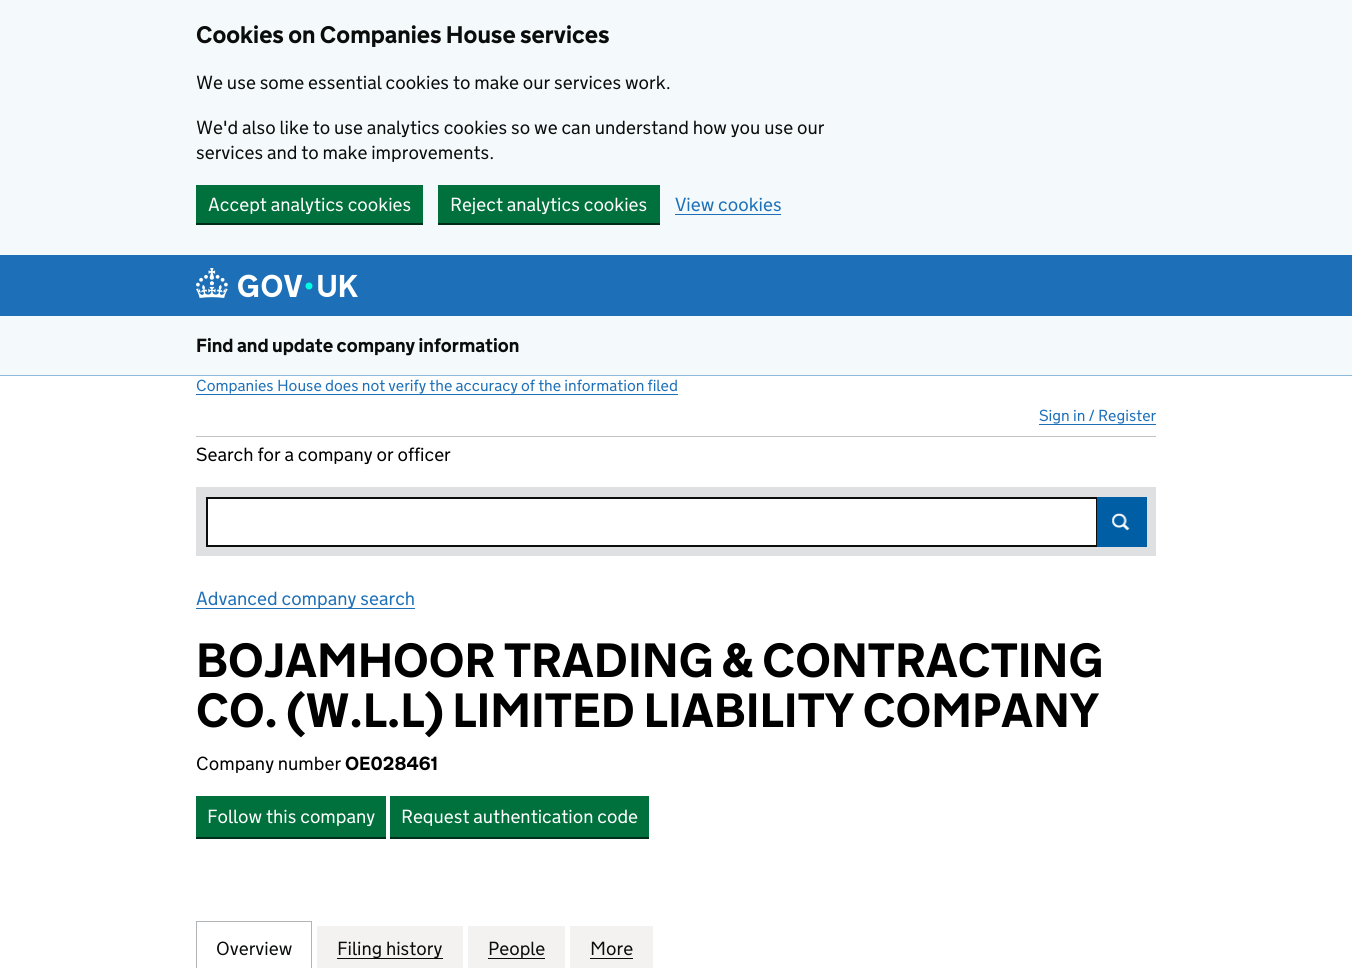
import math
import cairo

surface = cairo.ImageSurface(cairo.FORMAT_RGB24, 1352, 968)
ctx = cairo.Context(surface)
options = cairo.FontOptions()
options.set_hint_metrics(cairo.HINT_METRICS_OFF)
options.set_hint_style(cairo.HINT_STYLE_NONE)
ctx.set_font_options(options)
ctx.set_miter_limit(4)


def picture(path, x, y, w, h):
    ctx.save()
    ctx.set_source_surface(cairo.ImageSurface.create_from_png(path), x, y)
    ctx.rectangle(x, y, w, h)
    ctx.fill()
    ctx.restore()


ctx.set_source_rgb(1, 1, 1)
ctx.paint()
ctx.set_source_rgb(0.957, 0.973, 0.984)
ctx.rectangle(0, 0, 1352, 255)
ctx.fill()
ctx.select_font_face("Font", cairo.FONT_SLANT_NORMAL, cairo.FONT_WEIGHT_BOLD)
ctx.set_font_size(24)
ctx.set_source_rgb(0.043, 0.047, 0.047)
ctx.move_to(196, 43)
ctx.show_text("Cookies on Companies House services")
ctx.select_font_face("Font Light")
ctx.set_font_size(19)
ctx.move_to(196, 89)
ctx.show_text("We use some essential cookies to make our services work.")
ctx.move_to(196, 134)
ctx.show_text("We'd also like to use analytics cookies so we can understand how you use our")
ctx.move_to(196, 159)
ctx.show_text("services and to make improvements.")
ctx.set_source_rgb(0, 0.176, 0.094)
ctx.rectangle(196, 223, 227, 2)
ctx.fill()
ctx.set_source_rgb(0, 0.439, 0.235)
ctx.rectangle(196, 185, 227, 38)
ctx.fill()
ctx.set_source_rgb(1, 1, 1)
ctx.move_to(208, 211)
ctx.show_text("Accept analytics cookies")
ctx.set_source_rgb(0, 0.176, 0.094)
ctx.rectangle(438, 223, 222, 2)
ctx.fill()
ctx.set_source_rgb(0, 0.439, 0.235)
ctx.rectangle(438, 185, 222, 38)
ctx.fill()
ctx.set_source_rgb(1, 1, 1)
ctx.move_to(450, 211)
ctx.show_text("Reject analytics cookies")
ctx.set_source_rgb(0.114, 0.439, 0.722)
ctx.move_to(675, 211)
ctx.show_text("View cookies")
ctx.rectangle(675, 214, 106, 1)
ctx.fill()
ctx.rectangle(0, 255, 1352, 61)
ctx.fill()
picture("img1.png", 196, 268, 162, 30)
ctx.set_source_rgb(0.957, 0.973, 0.984)
ctx.rectangle(0, 316, 1352, 59)
ctx.fill()
ctx.set_source_rgb(0.557, 0.722, 0.863)
ctx.rectangle(0, 375, 1352, 1)
ctx.fill()
ctx.select_font_face("Font", cairo.FONT_SLANT_NORMAL, cairo.FONT_WEIGHT_BOLD)
ctx.set_source_rgb(0.043, 0.047, 0.047)
ctx.move_to(196, 352)
ctx.show_text("Find and update company information")
ctx.select_font_face("Font Light")
ctx.set_font_size(16)
ctx.set_source_rgb(0.114, 0.439, 0.722)
ctx.move_to(196, 391)
ctx.show_text("Companies House does not verify the accuracy of the information filed")
ctx.rectangle(196, 394, 482, 1)
ctx.fill()
ctx.set_source_rgb(0.749, 0.757, 0.765)
ctx.rectangle(196, 436, 960, 1)
ctx.fill()
ctx.set_source_rgb(0.114, 0.439, 0.722)
ctx.move_to(1039, 421)
ctx.show_text("Sign in / Register")
ctx.rectangle(1039, 424, 117, 1)
ctx.fill()
ctx.set_font_size(19)
ctx.set_source_rgb(0, 0, 0)
ctx.move_to(196, 461)
ctx.show_text("Search for a company or officer")
ctx.set_source_rgb(0.871, 0.878, 0.886)
ctx.rectangle(196, 487, 960, 69)
ctx.fill()
ctx.set_source_rgb(1, 1, 1)
ctx.rectangle(207, 498, 890, 48)
ctx.fill_preserve()
ctx.set_source_rgb(0.043, 0.047, 0.047)
ctx.stroke()
ctx.set_source_rgb(0, 0.369, 0.647)
ctx.rectangle(1097, 497, 50, 50)
ctx.fill()
picture("img2.png", 1112, 513, 18, 18)
ctx.set_source_rgb(0.114, 0.439, 0.722)
ctx.rectangle(196, 608, 219, 1)
ctx.fill()
ctx.move_to(196, 605)
ctx.show_text("Advanced company search")
ctx.select_font_face("Font", cairo.FONT_SLANT_NORMAL, cairo.FONT_WEIGHT_BOLD)
ctx.set_font_size(48)
ctx.set_source_rgb(0, 0, 0)
ctx.move_to(196, 677)
ctx.show_text("BOJAMHOOR TRADING & CONTRACTING")
ctx.move_to(196, 727)
ctx.show_text("CO. (W.L.L) LIMITED LIABILITY COMPANY")
ctx.select_font_face("Font Light")
ctx.set_font_size(19)
ctx.move_to(196, 770)
ctx.show_text("Company number")
ctx.select_font_face("Font", cairo.FONT_SLANT_NORMAL, cairo.FONT_WEIGHT_BOLD)
ctx.move_to(345, 770)
ctx.show_text("OE028461")
ctx.set_source_rgb(0, 0.176, 0.094)
ctx.rectangle(196, 837, 190, 2)
ctx.fill()
ctx.set_source_rgb(0, 0.439, 0.235)
ctx.rectangle(196, 796, 190, 41)
ctx.fill()
ctx.select_font_face("Font Light")
ctx.set_source_rgb(1, 1, 1)
ctx.move_to(207, 823)
ctx.show_text("Follow this company")
ctx.set_source_rgb(0, 0.176, 0.094)
ctx.rectangle(390, 837, 259, 2)
ctx.fill()
ctx.set_source_rgb(0, 0.439, 0.235)
ctx.rectangle(390, 796, 259, 41)
ctx.fill()
ctx.set_source_rgb(1, 1, 1)
ctx.move_to(401, 823)
ctx.show_text("Request authentication code")
ctx.set_source_rgb(0.694, 0.706, 0.714)
ctx.rectangle(196, 921, 116, 1)
ctx.fill()
ctx.rectangle(311, 921, 1, 47)
ctx.fill()
ctx.rectangle(196, 921, 1, 47)
ctx.fill()
ctx.set_source_rgb(0.043, 0.047, 0.047)
ctx.move_to(216, 955)
ctx.show_text("Overview")
ctx.set_source_rgb(0.953, 0.949, 0.945)
ctx.rectangle(317, 926, 146, 42)
ctx.fill()
ctx.set_source_rgb(0.043, 0.047, 0.047)
ctx.rectangle(337, 958, 106, 1)
ctx.fill()
ctx.move_to(337, 955)
ctx.show_text("Filing history")
ctx.set_source_rgb(0.953, 0.949, 0.945)
ctx.rectangle(468, 926, 97, 42)
ctx.fill()
ctx.set_source_rgb(0.043, 0.047, 0.047)
ctx.move_to(488, 955)
ctx.show_text("People")
ctx.rectangle(488, 958, 57, 1)
ctx.fill()
ctx.set_source_rgb(0.953, 0.949, 0.945)
ctx.rectangle(570, 926, 83, 42)
ctx.fill()
ctx.set_source_rgb(0.043, 0.047, 0.047)
ctx.move_to(590, 955)
ctx.show_text("More")
ctx.rectangle(590, 958, 43, 1)
ctx.fill()
surface.write_to_png("page.png")
